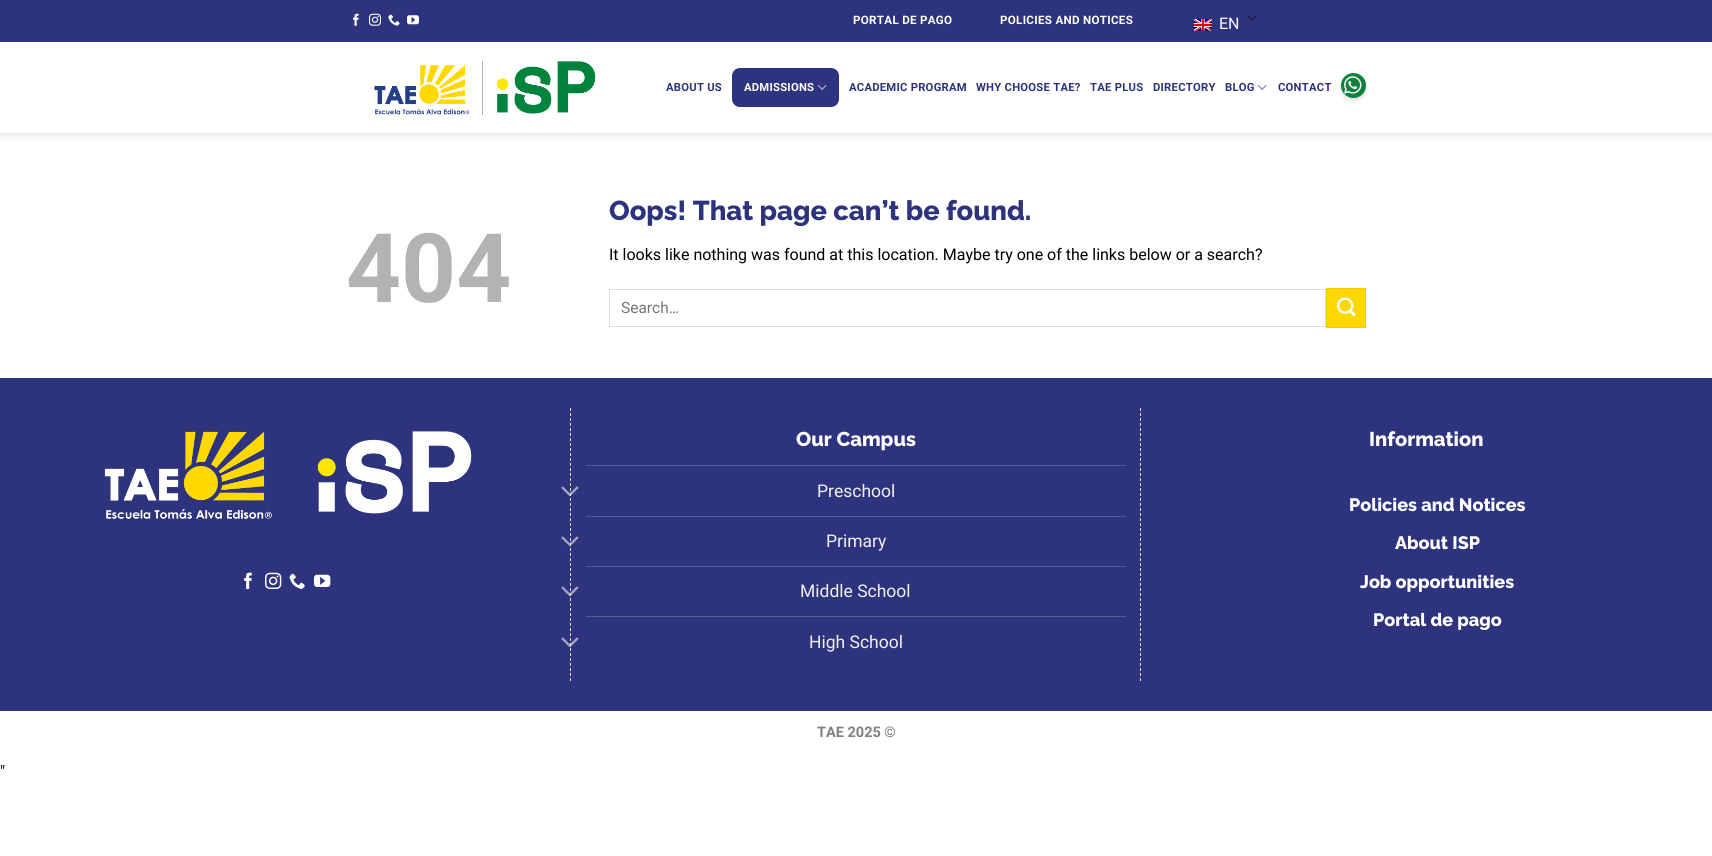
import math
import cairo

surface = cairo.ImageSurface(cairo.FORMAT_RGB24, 1712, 856)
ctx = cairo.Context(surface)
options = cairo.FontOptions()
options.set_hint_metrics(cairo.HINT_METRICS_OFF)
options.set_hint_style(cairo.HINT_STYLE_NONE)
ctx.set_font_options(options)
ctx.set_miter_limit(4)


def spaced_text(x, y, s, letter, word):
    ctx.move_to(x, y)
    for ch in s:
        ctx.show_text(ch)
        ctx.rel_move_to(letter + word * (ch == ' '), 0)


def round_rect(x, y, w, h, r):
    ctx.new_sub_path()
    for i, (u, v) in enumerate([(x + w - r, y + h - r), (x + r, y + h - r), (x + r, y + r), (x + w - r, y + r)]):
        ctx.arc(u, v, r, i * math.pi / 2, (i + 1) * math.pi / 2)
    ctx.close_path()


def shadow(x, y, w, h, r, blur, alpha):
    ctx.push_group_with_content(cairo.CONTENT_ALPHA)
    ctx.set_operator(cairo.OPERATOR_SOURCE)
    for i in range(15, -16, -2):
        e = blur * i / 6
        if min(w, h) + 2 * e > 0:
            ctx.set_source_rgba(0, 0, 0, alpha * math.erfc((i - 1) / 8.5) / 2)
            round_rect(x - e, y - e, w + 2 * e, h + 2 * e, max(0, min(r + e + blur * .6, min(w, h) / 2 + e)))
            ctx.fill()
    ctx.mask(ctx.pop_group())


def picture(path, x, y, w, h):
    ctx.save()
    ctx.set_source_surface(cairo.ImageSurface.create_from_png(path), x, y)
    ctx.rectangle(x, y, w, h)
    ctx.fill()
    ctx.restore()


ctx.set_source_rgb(1, 1, 1)
ctx.paint()
ctx.save()
ctx.rectangle(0, 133, 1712, 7)
ctx.clip()
ctx.set_source_rgb(0, 0, 0)
shadow(1, 1, 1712, 133, 0, 5, 0.15)
ctx.restore()
ctx.set_source_rgb(0.176, 0.2, 0.49)
ctx.rectangle(0, 0, 1712, 42)
ctx.fill()
picture("img1.png", 353, 13, 6, 13)
picture("img2.png", 369, 13, 12, 13)
picture("img3.png", 388, 14, 12, 12)
picture("img4.png", 407, 15, 12, 10)
round_rect(838.5, 6.5, 129, 29, 14.5)
ctx.set_source_rgb(0.169, 0.188, 0.467)
ctx.set_line_width(1)
ctx.stroke()
ctx.select_font_face("Roboto", cairo.FONT_SLANT_NORMAL, cairo.FONT_WEIGHT_BOLD)
ctx.set_font_size(11.6)
ctx.set_source_rgb(1, 1, 1)
spaced_text(853, 24, "PORTAL DE PAGO", 0.3, 0)
round_rect(985.5, 6.5, 163, 29, 14.5)
ctx.set_source_rgb(0.169, 0.188, 0.467)
ctx.stroke()
ctx.set_source_rgb(1, 1, 1)
spaced_text(1000, 24, "POLICIES AND NOTICES", 0.3, 0)
picture("img5.png", 1248, 15, 8, 5)
picture("img6.png", 1194, 19, 18, 12)
ctx.select_font_face("Roboto")
ctx.set_font_size(16)
ctx.move_to(1219, 29)
ctx.show_text("EN")
picture("img7.png", 374, 60, 222, 55)
ctx.select_font_face("Roboto", cairo.FONT_SLANT_NORMAL, cairo.FONT_WEIGHT_BOLD)
ctx.set_font_size(11.25)
ctx.set_source_rgb(0.176, 0.2, 0.49)
spaced_text(666, 91, "ABOUT US", 0.25, 0)
ctx.set_source_rgb(0.176, 0.2, 0.494)
round_rect(732, 68, 107, 39, 8)
ctx.fill()
ctx.set_source_rgb(1, 1, 1)
spaced_text(744, 91, "ADMISSIONS", 0.25, 0)
picture("img8.png", 817, 84, 10, 6)
ctx.set_source_rgb(0.176, 0.2, 0.49)
spaced_text(849, 91, "ACADEMIC PROGRAM", 0.25, 0)
spaced_text(976, 91, "WHY CHOOSE TAE?", 0.25, 0)
spaced_text(1090, 91, "TAE PLUS", 0.25, 0)
spaced_text(1153, 91, "DIRECTORY", 0.25, 0)
spaced_text(1225, 91, "BLOG", 0.25, 0)
picture("img9.png", 1257, 84, 10, 6)
spaced_text(1278, 91, "CONTACT", 0.25, 0)
ctx.set_source_rgb(0, 0, 0)
shadow(1341, 75, 25, 25, 12.5, 2, 0.15)
ctx.set_source_rgb(0.055, 0.506, 0.235)
ctx.arc(1353.5, 85.5, 12.5, 0, 2 * math.pi)
ctx.fill()
picture("img10.png", 1344, 76, 18, 18)
ctx.set_font_size(96)
ctx.set_source_rgb(0.702, 0.702, 0.702)
ctx.move_to(346, 302)
ctx.show_text("404")
ctx.select_font_face("Raleway ExtraBold")
ctx.set_font_size(27.25)
ctx.set_source_rgb(0.176, 0.2, 0.49)
ctx.move_to(609, 220)
ctx.show_text("Oops! That page can’t be found.")
ctx.select_font_face("Roboto")
ctx.set_font_size(16)
ctx.set_source_rgb(0, 0, 0)
ctx.move_to(609, 260)
ctx.show_text("It looks like nothing was found at this location. Maybe try one of the links below or a search?")
ctx.rectangle(609.5, 289.5, 716, 37)
ctx.set_source_rgb(0.867, 0.867, 0.867)
ctx.stroke()
ctx.set_font_size(15.5)
ctx.set_source_rgb(0.459, 0.459, 0.459)
ctx.move_to(621, 313)
ctx.show_text("Search…")
ctx.set_source_rgb(0.996, 0.847, 0)
ctx.rectangle(1326.5, 288.5, 39, 39)
ctx.fill_preserve()
ctx.set_source_rgb(0.945, 0.804, 0)
ctx.stroke()
picture("img11.png", 1337, 297, 19, 20)
ctx.set_source_rgb(0.176, 0.2, 0.49)
ctx.rectangle(0, 378, 1712, 333)
ctx.fill()
picture("img12.png", 104, 431, 368, 88)
picture("img13.png", 244, 572, 8, 17)
picture("img14.png", 265, 572, 17, 17)
picture("img15.png", 289, 573, 16, 16)
picture("img16.png", 314, 574, 17, 13)
ctx.new_path()
ctx.move_to(570.5, 408)
ctx.line_to(570.5, 681)
ctx.set_source_rgb(0.867, 0.867, 0.867)
ctx.set_dash([3, 2])
ctx.stroke()
ctx.select_font_face("Raleway ExtraBold")
ctx.set_font_size(20)
ctx.set_source_rgb(1, 1, 1)
ctx.move_to(796, 446)
ctx.show_text("Our Campus")
ctx.set_source_rgb(0.341, 0.361, 0.592)
ctx.rectangle(586, 465, 540, 1)
ctx.fill()
picture("img17.png", 561, 486, 18, 11)
ctx.select_font_face("Roboto")
ctx.set_font_size(17.5)
ctx.set_source_rgb(0.945, 0.945, 0.945)
ctx.move_to(817, 497)
ctx.show_text("Preschool")
ctx.set_source_rgb(0.341, 0.361, 0.592)
ctx.rectangle(586, 516, 540, 1)
ctx.fill()
picture("img17.png", 561, 536, 18, 11)
ctx.set_source_rgb(0.945, 0.945, 0.945)
ctx.move_to(826, 547)
ctx.show_text("Primary")
ctx.set_source_rgb(0.341, 0.361, 0.592)
ctx.rectangle(586, 566, 540, 1)
ctx.fill()
picture("img17.png", 561, 586, 18, 11)
ctx.set_source_rgb(0.945, 0.945, 0.945)
ctx.move_to(800, 597)
ctx.show_text("Middle School")
ctx.set_source_rgb(0.341, 0.361, 0.592)
ctx.rectangle(586, 616, 540, 1)
ctx.fill()
picture("img18.png", 561, 637, 18, 11)
ctx.set_source_rgb(0.945, 0.945, 0.945)
ctx.move_to(809, 648)
ctx.show_text("High School")
ctx.new_path()
ctx.move_to(1140.5, 408)
ctx.line_to(1140.5, 681)
ctx.set_source_rgb(0.867, 0.867, 0.867)
ctx.stroke()
ctx.select_font_face("Raleway ExtraBold")
ctx.set_font_size(20)
ctx.set_source_rgb(1, 1, 1)
ctx.move_to(1369, 446)
ctx.show_text("Information")
ctx.set_font_size(18)
ctx.move_to(1349, 511)
ctx.show_text("Policies and Notices")
ctx.move_to(1395, 549)
ctx.show_text("About ISP")
ctx.move_to(1360, 588)
ctx.show_text("Job opportunities")
ctx.move_to(1373, 626)
ctx.show_text("Portal de pago")
ctx.select_font_face("Roboto", cairo.FONT_SLANT_NORMAL, cairo.FONT_WEIGHT_BOLD)
ctx.set_font_size(14.5)
ctx.set_source_rgb(0.502, 0.502, 0.502)
ctx.move_to(817, 737)
ctx.show_text("TAE 2025 ©")
ctx.select_font_face("Roboto")
ctx.set_font_size(16)
ctx.set_source_rgb(0, 0, 0)
ctx.move_to(0, 777)
ctx.show_text("\"")
surface.write_to_png("page.png")
